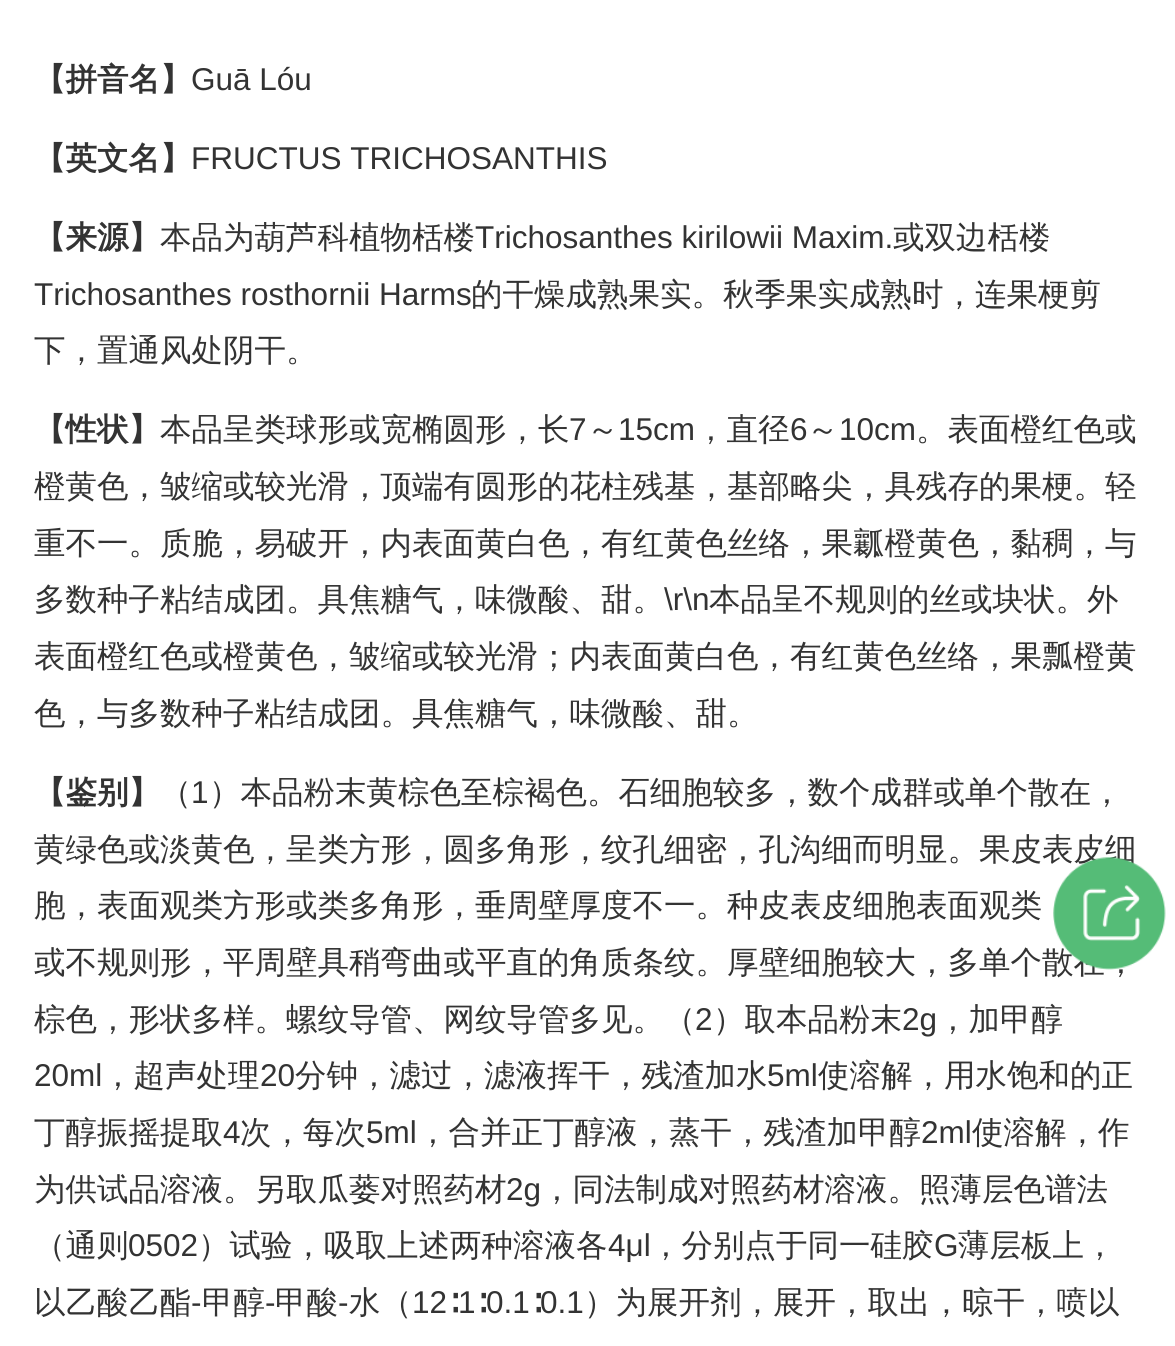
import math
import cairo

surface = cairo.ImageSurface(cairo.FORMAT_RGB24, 1175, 1346)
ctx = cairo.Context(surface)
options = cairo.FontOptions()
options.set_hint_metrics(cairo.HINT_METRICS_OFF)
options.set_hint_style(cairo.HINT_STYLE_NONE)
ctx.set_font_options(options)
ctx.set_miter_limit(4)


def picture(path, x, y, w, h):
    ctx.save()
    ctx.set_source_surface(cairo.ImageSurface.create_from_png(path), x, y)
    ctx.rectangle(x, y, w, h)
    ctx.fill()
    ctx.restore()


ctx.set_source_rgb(1, 1, 1)
ctx.paint()
ctx.select_font_face("WenQuanYi Zen Hei", cairo.FONT_SLANT_NORMAL, cairo.FONT_WEIGHT_BOLD)
ctx.set_font_size(31.5)
ctx.set_source_rgb(0.2, 0.2, 0.2)
ctx.move_to(34, 90)
ctx.show_text("【拼音名】")
ctx.select_font_face("Liberation Sans")
ctx.move_to(191, 90)
ctx.show_text("Guā Lóu")
ctx.select_font_face("WenQuanYi Zen Hei", cairo.FONT_SLANT_NORMAL, cairo.FONT_WEIGHT_BOLD)
ctx.move_to(34, 169)
ctx.show_text("【英文名】")
ctx.select_font_face("Liberation Sans")
ctx.move_to(191, 169)
ctx.show_text("FRUCTUS TRICHOSANTHIS")
ctx.select_font_face("WenQuanYi Zen Hei", cairo.FONT_SLANT_NORMAL, cairo.FONT_WEIGHT_BOLD)
ctx.move_to(34, 248)
ctx.show_text("【来源】")
ctx.select_font_face("WenQuanYi Zen Hei Medium")
ctx.move_to(160, 248)
ctx.show_text("本品为葫芦科植物栝楼")
ctx.select_font_face("Liberation Sans")
ctx.move_to(475, 248)
ctx.show_text("Trichosanthes kirilowii Maxim.")
ctx.select_font_face("WenQuanYi Zen Hei Medium")
ctx.move_to(893, 248)
ctx.show_text("或双边栝楼")
ctx.select_font_face("Liberation Sans")
ctx.move_to(34, 305)
ctx.show_text("Trichosanthes rosthornii Harms")
ctx.select_font_face("WenQuanYi Zen Hei Medium")
ctx.move_to(471, 305)
ctx.show_text("的干燥成熟果实。秋季果实成熟时，连果梗剪")
ctx.move_to(34, 361)
ctx.show_text("下，置通风处阴干。")
ctx.select_font_face("WenQuanYi Zen Hei", cairo.FONT_SLANT_NORMAL, cairo.FONT_WEIGHT_BOLD)
ctx.move_to(34, 440)
ctx.show_text("【性状】")
ctx.select_font_face("WenQuanYi Zen Hei Medium")
ctx.move_to(160, 440)
ctx.show_text("本品呈类球形或宽椭圆形，长")
ctx.select_font_face("Liberation Sans")
ctx.move_to(569, 440)
ctx.show_text("7")
ctx.select_font_face("WenQuanYi Zen Hei Medium")
ctx.move_to(587, 440)
ctx.show_text("～")
ctx.select_font_face("Liberation Sans")
ctx.move_to(618, 440)
ctx.show_text("15cm")
ctx.select_font_face("WenQuanYi Zen Hei Medium")
ctx.move_to(695, 440)
ctx.show_text("，直径")
ctx.select_font_face("Liberation Sans")
ctx.move_to(790, 440)
ctx.show_text("6")
ctx.select_font_face("WenQuanYi Zen Hei Medium")
ctx.move_to(807, 440)
ctx.show_text("～")
ctx.select_font_face("Liberation Sans")
ctx.move_to(839, 440)
ctx.show_text("10cm")
ctx.select_font_face("WenQuanYi Zen Hei Medium")
ctx.move_to(916, 440)
ctx.show_text("。表面橙红色或")
ctx.move_to(34, 497)
ctx.show_text("橙黄色，皱缩或较光滑，顶端有圆形的花柱残基，基部略尖，具残存的果梗。轻")
ctx.move_to(34, 554)
ctx.show_text("重不一。质脆，易破开，内表面黄白色，有红黄色丝络，果瓤橙黄色，黏稠，与")
ctx.move_to(34, 610)
ctx.show_text("多数种子粘结成团。具焦糖气，味微酸、甜。")
ctx.select_font_face("Liberation Sans")
ctx.move_to(664, 610)
ctx.show_text("\\r\\n")
ctx.select_font_face("WenQuanYi Zen Hei Medium")
ctx.move_to(709, 610)
ctx.show_text("本品呈不规则的丝或块状。外")
ctx.move_to(34, 667)
ctx.show_text("表面橙红色或橙黄色，皱缩或较光滑；内表面黄白色，有红黄色丝络，果瓢橙黄")
ctx.move_to(34, 724)
ctx.show_text("色，与多数种子粘结成团。具焦糖气，味微酸、甜。")
ctx.select_font_face("WenQuanYi Zen Hei", cairo.FONT_SLANT_NORMAL, cairo.FONT_WEIGHT_BOLD)
ctx.move_to(34, 803)
ctx.show_text("【鉴别】")
ctx.select_font_face("WenQuanYi Zen Hei Medium")
ctx.move_to(160, 803)
ctx.show_text("（")
ctx.select_font_face("Liberation Sans")
ctx.move_to(191, 803)
ctx.show_text("1")
ctx.select_font_face("WenQuanYi Zen Hei Medium")
ctx.move_to(209, 803)
ctx.show_text("）本品粉末黄棕色至棕褐色。石细胞较多，数个成群或单个散在，")
ctx.move_to(34, 860)
ctx.show_text("黄绿色或淡黄色，呈类方形，圆多角形，纹孔细密，孔沟细而明显。果皮表皮细")
ctx.move_to(34, 916)
ctx.show_text("胞，表面观类方形或类多角形，垂周壁厚度不一。种皮表皮细胞表面观类")
ctx.move_to(34, 973)
ctx.show_text("或不规则形，平周壁具稍弯曲或平直的角质条纹。厚壁细胞较大，多单个散在，")
ctx.move_to(34, 1030)
ctx.show_text("棕色，形状多样。螺纹导管、网纹导管多见。（")
ctx.select_font_face("Liberation Sans")
ctx.move_to(695, 1030)
ctx.show_text("2")
ctx.select_font_face("WenQuanYi Zen Hei Medium")
ctx.move_to(713, 1030)
ctx.show_text("）取本品粉末")
ctx.select_font_face("Liberation Sans")
ctx.move_to(902, 1030)
ctx.show_text("2g")
ctx.select_font_face("WenQuanYi Zen Hei Medium")
ctx.move_to(937, 1030)
ctx.show_text("，加甲醇")
ctx.select_font_face("Liberation Sans")
ctx.move_to(34, 1086)
ctx.show_text("20ml")
ctx.select_font_face("WenQuanYi Zen Hei Medium")
ctx.move_to(102, 1086)
ctx.show_text("，超声处理")
ctx.select_font_face("Liberation Sans")
ctx.move_to(260, 1086)
ctx.show_text("20")
ctx.select_font_face("WenQuanYi Zen Hei Medium")
ctx.move_to(295, 1086)
ctx.show_text("分钟，滤过，滤液挥干，残渣加水")
ctx.select_font_face("Liberation Sans")
ctx.move_to(767, 1086)
ctx.show_text("5ml")
ctx.select_font_face("WenQuanYi Zen Hei Medium")
ctx.move_to(818, 1086)
ctx.show_text("使溶解，用水饱和的正")
ctx.move_to(34, 1143)
ctx.show_text("丁醇振摇提取")
ctx.select_font_face("Liberation Sans")
ctx.move_to(223, 1143)
ctx.show_text("4")
ctx.select_font_face("WenQuanYi Zen Hei Medium")
ctx.move_to(240, 1143)
ctx.show_text("次，每次")
ctx.select_font_face("Liberation Sans")
ctx.move_to(366, 1143)
ctx.show_text("5ml")
ctx.select_font_face("WenQuanYi Zen Hei Medium")
ctx.move_to(417, 1143)
ctx.show_text("，合并正丁醇液，蒸干，残渣加甲醇")
ctx.select_font_face("Liberation Sans")
ctx.move_to(921, 1143)
ctx.show_text("2ml")
ctx.select_font_face("WenQuanYi Zen Hei Medium")
ctx.move_to(972, 1143)
ctx.show_text("使溶解，作")
ctx.move_to(34, 1200)
ctx.show_text("为供试品溶液。另取瓜蒌对照药材")
ctx.select_font_face("Liberation Sans")
ctx.move_to(506, 1200)
ctx.show_text("2g")
ctx.select_font_face("WenQuanYi Zen Hei Medium")
ctx.move_to(541, 1200)
ctx.show_text("，同法制成对照药材溶液。照薄层色谱法")
ctx.move_to(34, 1256)
ctx.show_text("（通则")
ctx.select_font_face("Liberation Sans")
ctx.move_to(128, 1256)
ctx.show_text("0502")
ctx.select_font_face("WenQuanYi Zen Hei Medium")
ctx.move_to(198, 1256)
ctx.show_text("）试验，吸取上述两种溶液各")
ctx.select_font_face("Liberation Sans")
ctx.move_to(608, 1256)
ctx.show_text("4μl")
ctx.select_font_face("WenQuanYi Zen Hei Medium")
ctx.move_to(650, 1256)
ctx.show_text("，分别点于同一硅胶")
ctx.select_font_face("Liberation Sans")
ctx.move_to(934, 1256)
ctx.show_text("G")
ctx.select_font_face("WenQuanYi Zen Hei Medium")
ctx.move_to(958, 1256)
ctx.show_text("薄层板上，")
ctx.move_to(34, 1313)
ctx.show_text("以乙酸乙酯")
ctx.select_font_face("Liberation Sans")
ctx.move_to(191, 1313)
ctx.show_text("-")
ctx.select_font_face("WenQuanYi Zen Hei Medium")
ctx.move_to(202, 1313)
ctx.show_text("甲醇")
ctx.select_font_face("Liberation Sans")
ctx.move_to(265, 1313)
ctx.show_text("-")
ctx.select_font_face("WenQuanYi Zen Hei Medium")
ctx.move_to(275, 1313)
ctx.show_text("甲酸")
ctx.select_font_face("Liberation Sans")
ctx.move_to(338, 1313)
ctx.show_text("-")
ctx.select_font_face("WenQuanYi Zen Hei Medium")
ctx.move_to(349, 1313)
ctx.show_text("水（")
ctx.select_font_face("Liberation Sans")
ctx.move_to(412, 1313)
ctx.show_text("12")
ctx.select_font_face("WenQuanYi Zen Hei Medium")
ctx.move_to(447, 1313)
ctx.show_text("∶")
ctx.select_font_face("Liberation Sans")
ctx.move_to(458, 1313)
ctx.show_text("1")
ctx.select_font_face("WenQuanYi Zen Hei Medium")
ctx.move_to(475, 1313)
ctx.show_text("∶")
ctx.select_font_face("Liberation Sans")
ctx.move_to(486, 1313)
ctx.show_text("0.1")
ctx.select_font_face("WenQuanYi Zen Hei Medium")
ctx.move_to(530, 1313)
ctx.show_text("∶")
ctx.select_font_face("Liberation Sans")
ctx.move_to(540, 1313)
ctx.show_text("0.1")
ctx.select_font_face("WenQuanYi Zen Hei Medium")
ctx.move_to(584, 1313)
ctx.show_text("）为展开剂，展开，取出，晾干，喷以")
picture("img1.png", 1053, 857, 113, 113)
surface.write_to_png("page.png")
